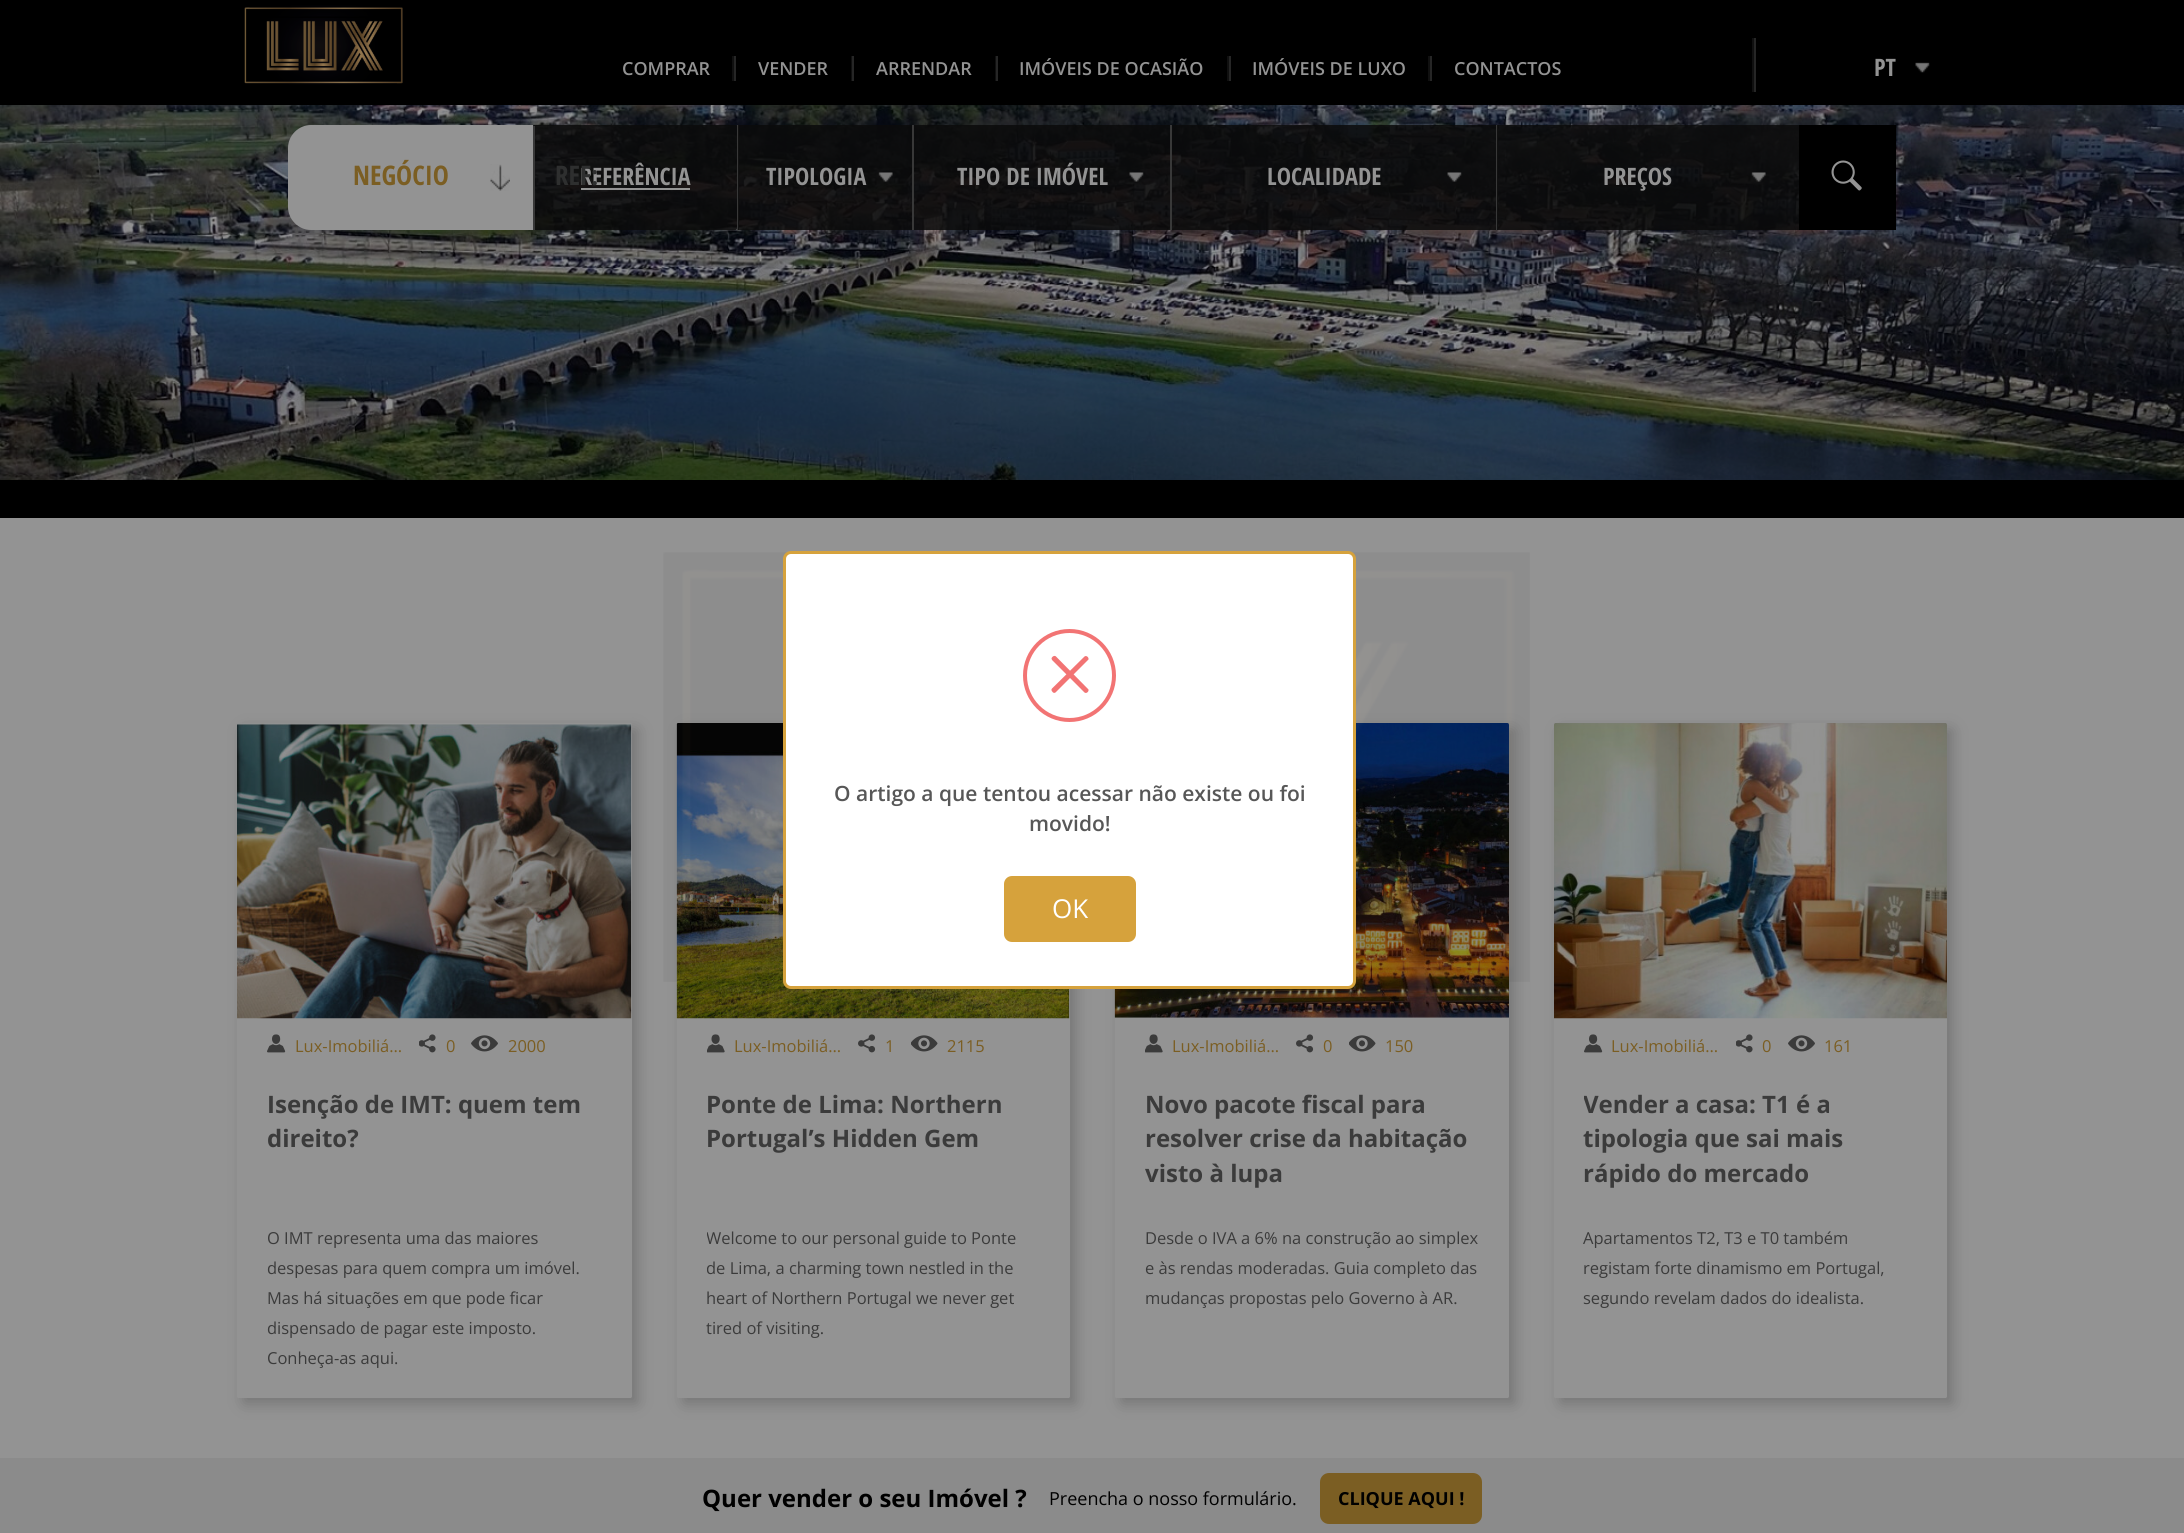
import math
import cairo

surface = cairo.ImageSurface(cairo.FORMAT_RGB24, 2184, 1533)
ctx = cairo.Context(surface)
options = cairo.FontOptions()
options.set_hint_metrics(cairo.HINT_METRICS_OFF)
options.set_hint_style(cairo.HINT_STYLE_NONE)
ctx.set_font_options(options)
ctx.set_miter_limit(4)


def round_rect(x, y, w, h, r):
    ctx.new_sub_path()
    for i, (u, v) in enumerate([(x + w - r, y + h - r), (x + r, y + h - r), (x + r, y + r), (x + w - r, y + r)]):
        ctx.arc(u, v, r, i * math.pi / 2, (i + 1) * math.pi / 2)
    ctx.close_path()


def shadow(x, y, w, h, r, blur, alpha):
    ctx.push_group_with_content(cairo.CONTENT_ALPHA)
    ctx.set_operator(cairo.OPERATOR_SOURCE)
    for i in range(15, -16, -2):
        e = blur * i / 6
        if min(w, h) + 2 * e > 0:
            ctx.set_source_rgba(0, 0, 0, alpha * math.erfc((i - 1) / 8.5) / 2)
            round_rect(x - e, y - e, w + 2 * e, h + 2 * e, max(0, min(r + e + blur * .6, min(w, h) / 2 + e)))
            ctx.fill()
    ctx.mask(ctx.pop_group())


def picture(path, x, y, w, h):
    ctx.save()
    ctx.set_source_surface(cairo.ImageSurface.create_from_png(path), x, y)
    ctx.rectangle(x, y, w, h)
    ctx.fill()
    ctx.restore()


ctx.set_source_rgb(0.576, 0.576, 0.576)
ctx.paint()
ctx.set_source_rgb(0, 0, 0)
ctx.rectangle(0, 0, 2184, 105)
ctx.fill()
picture("img1.png", 244, 5, 159, 80)
ctx.select_font_face("Open Sans SemiBold")
ctx.set_font_size(18)
ctx.set_source_rgb(0.576, 0.576, 0.576)
ctx.move_to(622, 75)
ctx.show_text("COMPRAR")
ctx.set_source_rgb(0.063, 0.063, 0.063)
ctx.rectangle(732, 56, 2, 25)
ctx.fill()
ctx.set_source_rgb(0.149, 0.149, 0.149)
ctx.rectangle(734, 56, 2, 25)
ctx.fill()
ctx.set_source_rgb(0.576, 0.576, 0.576)
ctx.move_to(758, 75)
ctx.show_text("VENDER")
ctx.set_source_rgb(0.063, 0.063, 0.063)
ctx.rectangle(851, 56, 1, 25)
ctx.fill()
ctx.set_source_rgb(0.149, 0.149, 0.149)
ctx.rectangle(852, 56, 2, 25)
ctx.fill()
ctx.set_source_rgb(0.576, 0.576, 0.576)
ctx.move_to(876, 75)
ctx.show_text("ARRENDAR")
ctx.set_source_rgb(0.063, 0.063, 0.063)
ctx.rectangle(995, 56, 1, 25)
ctx.fill()
ctx.set_source_rgb(0.149, 0.149, 0.149)
ctx.rectangle(996, 56, 2, 25)
ctx.fill()
ctx.set_source_rgb(0.576, 0.576, 0.576)
ctx.move_to(1019, 75)
ctx.show_text("IMÓVEIS DE OCASIÃO")
ctx.set_source_rgb(0.063, 0.063, 0.063)
ctx.rectangle(1227, 56, 2, 25)
ctx.fill()
ctx.set_source_rgb(0.149, 0.149, 0.149)
ctx.rectangle(1229, 56, 2, 25)
ctx.fill()
ctx.set_source_rgb(0.576, 0.576, 0.576)
ctx.move_to(1252, 75)
ctx.show_text("IMÓVEIS DE LUXO")
ctx.set_source_rgb(0.063, 0.063, 0.063)
ctx.rectangle(1428, 56, 2, 25)
ctx.fill()
ctx.set_source_rgb(0.149, 0.149, 0.149)
ctx.rectangle(1430, 56, 2, 25)
ctx.fill()
ctx.set_source_rgb(0.576, 0.576, 0.576)
ctx.move_to(1454, 75)
ctx.show_text("CONTACTOS")
ctx.set_source_rgb(0.063, 0.063, 0.063)
ctx.rectangle(1752, 38, 2, 54)
ctx.fill()
ctx.set_source_rgb(0.149, 0.149, 0.149)
ctx.rectangle(1754, 38, 2, 54)
ctx.fill()
picture("img2.png", 1915, 62, 15, 11)
ctx.select_font_face("Open Sans Condensed", cairo.FONT_SLANT_NORMAL, cairo.FONT_WEIGHT_BOLD)
ctx.set_font_size(24)
ctx.set_source_rgb(0.576, 0.576, 0.576)
ctx.move_to(1874, 76)
ctx.show_text("PT")
picture("img3.png", 0, 105, 2184, 375)
ctx.new_path()
ctx.move_to(311, 125)
ctx.line_to(533, 125)
ctx.line_to(533, 230)
ctx.line_to(311, 230)
ctx.curve_to(298.5, 230, 288, 219.5, 288, 207)
ctx.line_to(288, 148)
ctx.curve_to(288, 135.5, 298.5, 125, 311, 125)
ctx.close_path()
ctx.fill()
picture("img4.png", 490, 164, 20, 27)
ctx.set_font_size(27)
ctx.set_source_rgb(0.482, 0.369, 0.137)
ctx.move_to(353, 185)
ctx.show_text("NEGÓCIO")
ctx.set_source_rgba(0.043, 0.043, 0.043, 0.85)
round_rect(533, 125, 204, 105, 1.5)
ctx.fill()
ctx.set_font_size(24)
ctx.set_source_rgb(0.576, 0.576, 0.576)
ctx.move_to(580, 185)
ctx.show_text("REFERÊNCIA")
ctx.set_font_size(27)
ctx.set_source_rgb(0.18, 0.184, 0.184)
ctx.move_to(555, 185)
ctx.show_text("REF:")
ctx.set_source_rgb(0.22, 0.22, 0.22)
ctx.rectangle(533, 126, 2, 104)
ctx.fill()
ctx.set_source_rgb(0.576, 0.576, 0.576)
ctx.rectangle(581, 188, 109, 2)
ctx.fill()
ctx.set_source_rgb(0.22, 0.22, 0.22)
ctx.rectangle(737, 125, 2, 105)
ctx.fill()
ctx.set_source_rgba(0.043, 0.043, 0.043, 0.85)
ctx.rectangle(738, 125, 174, 105)
ctx.fill()
picture("img5.png", 878, 172, 15, 10)
ctx.set_font_size(24)
ctx.set_source_rgb(0.576, 0.576, 0.576)
ctx.move_to(766, 185)
ctx.show_text("TIPOLOGIA")
ctx.set_source_rgb(0.22, 0.22, 0.22)
ctx.rectangle(912, 125, 2, 105)
ctx.fill()
ctx.set_source_rgba(0.043, 0.043, 0.043, 0.85)
ctx.rectangle(914, 125, 256, 105)
ctx.fill()
picture("img6.png", 1129, 172, 15, 10)
ctx.set_source_rgb(0.576, 0.576, 0.576)
ctx.move_to(957, 185)
ctx.show_text("TIPO DE IMÓVEL")
ctx.set_source_rgb(0.22, 0.22, 0.22)
ctx.rectangle(1170, 125, 2, 105)
ctx.fill()
ctx.set_source_rgba(0.043, 0.043, 0.043, 0.85)
ctx.rectangle(1172, 125, 324, 105)
ctx.fill()
picture("img7.png", 1447, 172, 15, 10)
ctx.set_source_rgb(0.576, 0.576, 0.576)
ctx.move_to(1267, 185)
ctx.show_text("LOCALIDADE")
ctx.set_source_rgb(0.22, 0.22, 0.22)
ctx.rectangle(1496, 125, 2, 105)
ctx.fill()
ctx.set_source_rgba(0.043, 0.043, 0.043, 0.85)
ctx.rectangle(1497, 125, 302, 105)
ctx.fill()
picture("img8.png", 1751, 172, 15, 10)
ctx.set_source_rgb(0.576, 0.576, 0.576)
ctx.move_to(1603, 185)
ctx.show_text("PREÇOS")
ctx.set_source_rgb(0, 0, 0)
ctx.rectangle(1799, 125, 97, 105)
ctx.fill()
picture("img9.png", 1831, 160, 31, 31)
ctx.rectangle(0, 480, 2184, 38)
ctx.fill()
ctx.set_source_rgb(0, 0, 0)
shadow(243, 729, 395, 675, 1.5, 7.5, 0.2)
ctx.set_source_rgb(0.576, 0.576, 0.576)
round_rect(237, 723, 395, 675, 1.5)
ctx.fill()
picture("img10.png", 237, 723, 395, 296)
picture("img11.png", 267, 1034, 19, 19)
ctx.select_font_face("Open Sans")
ctx.set_font_size(16.5)
ctx.set_source_rgb(0.482, 0.369, 0.137)
ctx.move_to(295, 1052)
ctx.show_text("Lux-Imobiliá…")
picture("img12.png", 419, 1034, 17, 19)
ctx.move_to(446, 1052)
ctx.show_text("0")
picture("img13.png", 471, 1035, 27, 17)
ctx.move_to(508, 1052)
ctx.show_text("2000")
ctx.select_font_face("Open Sans", cairo.FONT_SLANT_NORMAL, cairo.FONT_WEIGHT_BOLD)
ctx.set_font_size(24)
ctx.set_source_rgb(0.231, 0.231, 0.231)
ctx.move_to(267, 1113)
ctx.show_text("Isenção de IMT: quem tem")
ctx.move_to(267, 1147)
ctx.show_text("direito?")
ctx.select_font_face("Open Sans")
ctx.set_font_size(16.5)
ctx.move_to(267, 1244)
ctx.show_text("O IMT representa uma das maiores")
ctx.move_to(267, 1274)
ctx.show_text("despesas para quem compra um imóvel.")
ctx.move_to(267, 1304)
ctx.show_text("Mas há situações em que pode ficar")
ctx.move_to(267, 1334)
ctx.show_text("dispensado de pagar este imposto.")
ctx.move_to(267, 1364)
ctx.show_text("Conheça-as aqui.")
ctx.set_source_rgb(0, 0, 0)
shadow(683, 729, 393, 675, 1.5, 7.5, 0.2)
ctx.set_source_rgb(0.576, 0.576, 0.576)
round_rect(677, 723, 393, 675, 1.5)
ctx.fill()
picture("img14.png", 676, 723, 394, 296)
picture("img15.png", 707, 1034, 18, 19)
ctx.set_source_rgb(0.482, 0.369, 0.137)
ctx.move_to(734, 1052)
ctx.show_text("Lux-Imobiliá…")
picture("img16.png", 858, 1034, 18, 19)
ctx.move_to(885, 1052)
ctx.show_text("1")
picture("img17.png", 911, 1035, 27, 17)
ctx.move_to(947, 1052)
ctx.show_text("2115")
ctx.select_font_face("Open Sans", cairo.FONT_SLANT_NORMAL, cairo.FONT_WEIGHT_BOLD)
ctx.set_font_size(24)
ctx.set_source_rgb(0.231, 0.231, 0.231)
ctx.move_to(706, 1113)
ctx.show_text("Ponte de Lima: Northern")
ctx.move_to(706, 1147)
ctx.show_text("Portugal’s Hidden Gem")
ctx.save()
ctx.rectangle(707, 1223, 333, 150)
ctx.clip()
ctx.select_font_face("Open Sans")
ctx.set_font_size(16.5)
ctx.move_to(706, 1244)
ctx.show_text("Welcome to our personal guide to Ponte")
ctx.move_to(706, 1274)
ctx.show_text("de Lima, a charming town nestled in the")
ctx.restore()
ctx.select_font_face("Open Sans")
ctx.set_font_size(16.5)
ctx.move_to(706, 1304)
ctx.show_text("heart of Northern Portugal we never get")
ctx.move_to(706, 1334)
ctx.show_text("tired of visiting.")
ctx.set_source_rgb(0, 0, 0)
shadow(1121, 729, 394, 675, 1.5, 7.5, 0.2)
ctx.set_source_rgb(0.576, 0.576, 0.576)
round_rect(1115, 723, 394, 675, 1.5)
ctx.fill()
picture("img18.png", 1114, 723, 395, 295)
picture("img15.png", 1145, 1034, 18, 19)
ctx.set_source_rgb(0.482, 0.369, 0.137)
ctx.move_to(1172, 1052)
ctx.show_text("Lux-Imobiliá…")
picture("img16.png", 1296, 1034, 18, 19)
ctx.move_to(1323, 1052)
ctx.show_text("0")
picture("img17.png", 1349, 1035, 27, 17)
ctx.move_to(1385, 1052)
ctx.show_text("150")
ctx.select_font_face("Open Sans", cairo.FONT_SLANT_NORMAL, cairo.FONT_WEIGHT_BOLD)
ctx.set_font_size(24)
ctx.set_source_rgb(0.231, 0.231, 0.231)
ctx.move_to(1145, 1113)
ctx.show_text("Novo pacote fiscal para")
ctx.move_to(1145, 1147)
ctx.show_text("resolver crise da habitação")
ctx.move_to(1145, 1182)
ctx.show_text("visto à lupa")
ctx.select_font_face("Open Sans")
ctx.set_font_size(16.5)
ctx.move_to(1145, 1244)
ctx.show_text("Desde o IVA a 6% na construção ao simplex")
ctx.move_to(1145, 1274)
ctx.show_text("e às rendas moderadas. Guia completo das")
ctx.move_to(1145, 1304)
ctx.show_text("mudanças propostas pelo Governo à AR.")
ctx.set_source_rgb(0, 0, 0)
shadow(1560, 729, 393, 675, 1.5, 7.5, 0.2)
ctx.set_source_rgb(0.576, 0.576, 0.576)
round_rect(1554, 723, 393, 675, 1.5)
ctx.fill()
picture("img19.png", 1554, 723, 393, 296)
picture("img11.png", 1584, 1034, 19, 19)
ctx.set_source_rgb(0.482, 0.369, 0.137)
ctx.move_to(1611, 1052)
ctx.show_text("Lux-Imobiliá…")
picture("img12.png", 1736, 1034, 17, 19)
ctx.move_to(1762, 1052)
ctx.show_text("0")
picture("img13.png", 1788, 1035, 27, 17)
ctx.move_to(1824, 1052)
ctx.show_text("161")
ctx.save()
ctx.rectangle(1584, 1088, 333, 112)
ctx.clip()
ctx.select_font_face("Open Sans", cairo.FONT_SLANT_NORMAL, cairo.FONT_WEIGHT_BOLD)
ctx.set_font_size(24)
ctx.set_source_rgb(0.231, 0.231, 0.231)
ctx.move_to(1583, 1113)
ctx.show_text("Vender a casa: T1 é a")
ctx.restore()
ctx.select_font_face("Open Sans", cairo.FONT_SLANT_NORMAL, cairo.FONT_WEIGHT_BOLD)
ctx.set_font_size(24)
ctx.set_source_rgb(0.231, 0.231, 0.231)
ctx.move_to(1583, 1147)
ctx.show_text("tipologia que sai mais")
ctx.move_to(1583, 1182)
ctx.show_text("rápido do mercado")
ctx.select_font_face("Open Sans")
ctx.set_font_size(16.5)
ctx.move_to(1583, 1244)
ctx.show_text("Apartamentos T2, T3 e T0 também")
ctx.move_to(1583, 1274)
ctx.show_text("registam forte dinamismo em Portugal,")
ctx.move_to(1583, 1304)
ctx.show_text("segundo revelam dados do idealista.")
ctx.set_source_rgb(0.545, 0.545, 0.545)
ctx.rectangle(0, 1458, 2184, 75)
ctx.fill()
ctx.select_font_face("Open Sans", cairo.FONT_SLANT_NORMAL, cairo.FONT_WEIGHT_BOLD)
ctx.set_font_size(24)
ctx.set_source_rgb(0, 0, 0)
ctx.move_to(702, 1507)
ctx.show_text("Quer vender o seu Imóvel ?")
ctx.select_font_face("Open Sans")
ctx.set_font_size(18)
ctx.move_to(1049, 1505)
ctx.show_text("Preencha o nosso formulário.")
ctx.set_source_rgb(0.482, 0.369, 0.137)
round_rect(1320, 1473, 162, 51, 9)
ctx.fill()
ctx.select_font_face("Open Sans", cairo.FONT_SLANT_NORMAL, cairo.FONT_WEIGHT_BOLD)
ctx.set_source_rgb(0, 0, 0)
ctx.move_to(1338, 1505)
ctx.show_text("CLIQUE AQUI !")
picture("img20.png", 663, 552, 867, 430)
ctx.set_source_rgb(1, 1, 1)
round_rect(784.5, 552.5, 570, 435, 6.5)
ctx.fill_preserve()
ctx.set_source_rgb(0.839, 0.635, 0.235)
ctx.set_line_width(3)
ctx.stroke()
ctx.arc(1069.5, 675.5, 44.5, 0, 2 * math.pi)
ctx.set_source_rgb(0.949, 0.455, 0.455)
ctx.set_line_width(4)
ctx.stroke()
ctx.new_path()
ctx.move_to(1056, 656.5)
ctx.line_to(1088.5, 689.5)
ctx.curve_to(1089, 691.5, 1086.5, 694, 1084.5, 692.5)
ctx.line_to(1052, 660)
ctx.line_to(1051.5, 658.5)
ctx.curve_to(1052, 656.5, 1054.5, 655, 1056, 656.5)
ctx.close_path()
ctx.fill()
ctx.new_path()
ctx.move_to(1052, 688.5)
ctx.line_to(1084.5, 656.5)
ctx.curve_to(1086.5, 655, 1089, 657.5, 1088.5, 659.5)
ctx.line_to(1055.5, 692.5)
ctx.line_to(1054, 693)
ctx.curve_to(1052.5, 692.5, 1050.5, 690, 1052, 688.5)
ctx.close_path()
ctx.fill()
ctx.select_font_face("Open Sans SemiBold")
ctx.set_font_size(21)
ctx.set_source_rgb(0.341, 0.341, 0.341)
ctx.move_to(834, 801)
ctx.show_text("O artigo a que tentou acessar não existe ou foi")
ctx.move_to(1029, 831)
ctx.show_text("movido!")
ctx.set_source_rgb(0.839, 0.635, 0.235)
round_rect(1004, 876, 132, 66, 8)
ctx.fill()
ctx.select_font_face("Open Sans")
ctx.set_font_size(26)
ctx.set_source_rgb(1, 1, 1)
ctx.move_to(1052, 918)
ctx.show_text("OK")
surface.write_to_png("page.png")
